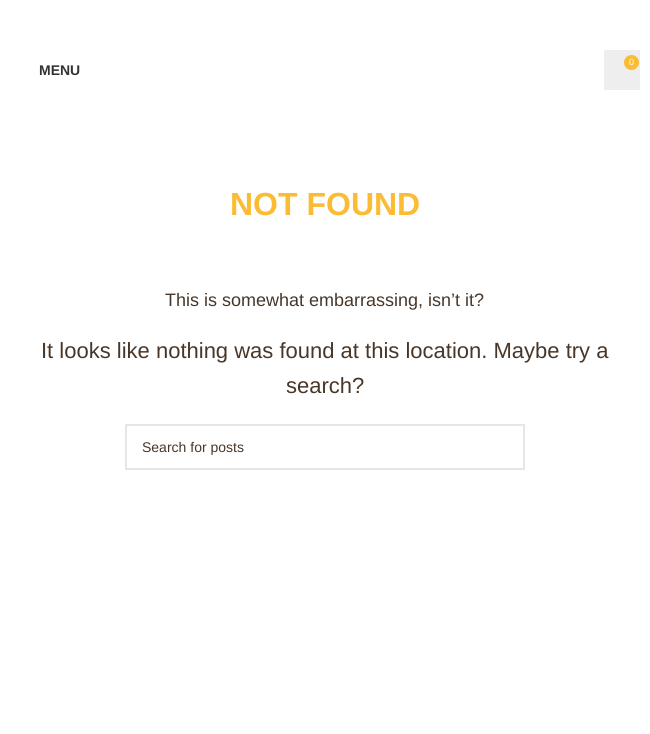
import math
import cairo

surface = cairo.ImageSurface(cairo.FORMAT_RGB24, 650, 734)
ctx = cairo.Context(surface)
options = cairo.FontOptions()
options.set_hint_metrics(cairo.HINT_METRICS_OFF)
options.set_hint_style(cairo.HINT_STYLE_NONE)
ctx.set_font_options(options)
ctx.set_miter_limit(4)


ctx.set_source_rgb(1, 1, 1)
ctx.paint()
ctx.set_source_rgb(0.933, 0.933, 0.933)
ctx.rectangle(604, 50, 36, 40)
ctx.fill()
ctx.set_source_rgb(0.984, 0.737, 0.204)
ctx.arc(631.5, 62.5, 7.5, 0, 2 * math.pi)
ctx.fill()
ctx.select_font_face("Liberation Sans")
ctx.set_font_size(9)
ctx.set_source_rgb(1, 1, 1)
ctx.move_to(629, 65)
ctx.show_text("0")
ctx.select_font_face("Liberation Sans", cairo.FONT_SLANT_NORMAL, cairo.FONT_WEIGHT_BOLD)
ctx.set_font_size(14)
ctx.set_source_rgb(0.2, 0.2, 0.2)
ctx.move_to(39, 75)
ctx.show_text("MENU")
ctx.set_font_size(32)
ctx.set_source_rgb(0.984, 0.737, 0.204)
ctx.move_to(230, 215)
ctx.show_text("NOT FOUND")
ctx.select_font_face("Liberation Sans")
ctx.set_font_size(18)
ctx.set_source_rgb(0.282, 0.216, 0.161)
ctx.move_to(165, 306)
ctx.show_text("This is somewhat embarrassing, isn’t it?")
ctx.set_font_size(22)
ctx.move_to(41, 358)
ctx.show_text("It looks like nothing was found at this location. Maybe try a")
ctx.move_to(286, 393)
ctx.show_text("search?")
ctx.rectangle(126, 425, 398, 44)
ctx.set_source_rgb(0.902, 0.902, 0.902)
ctx.stroke()
ctx.set_font_size(14)
ctx.set_source_rgb(0.282, 0.216, 0.161)
ctx.move_to(142, 452)
ctx.show_text("Search for posts")
surface.write_to_png("page.png")
